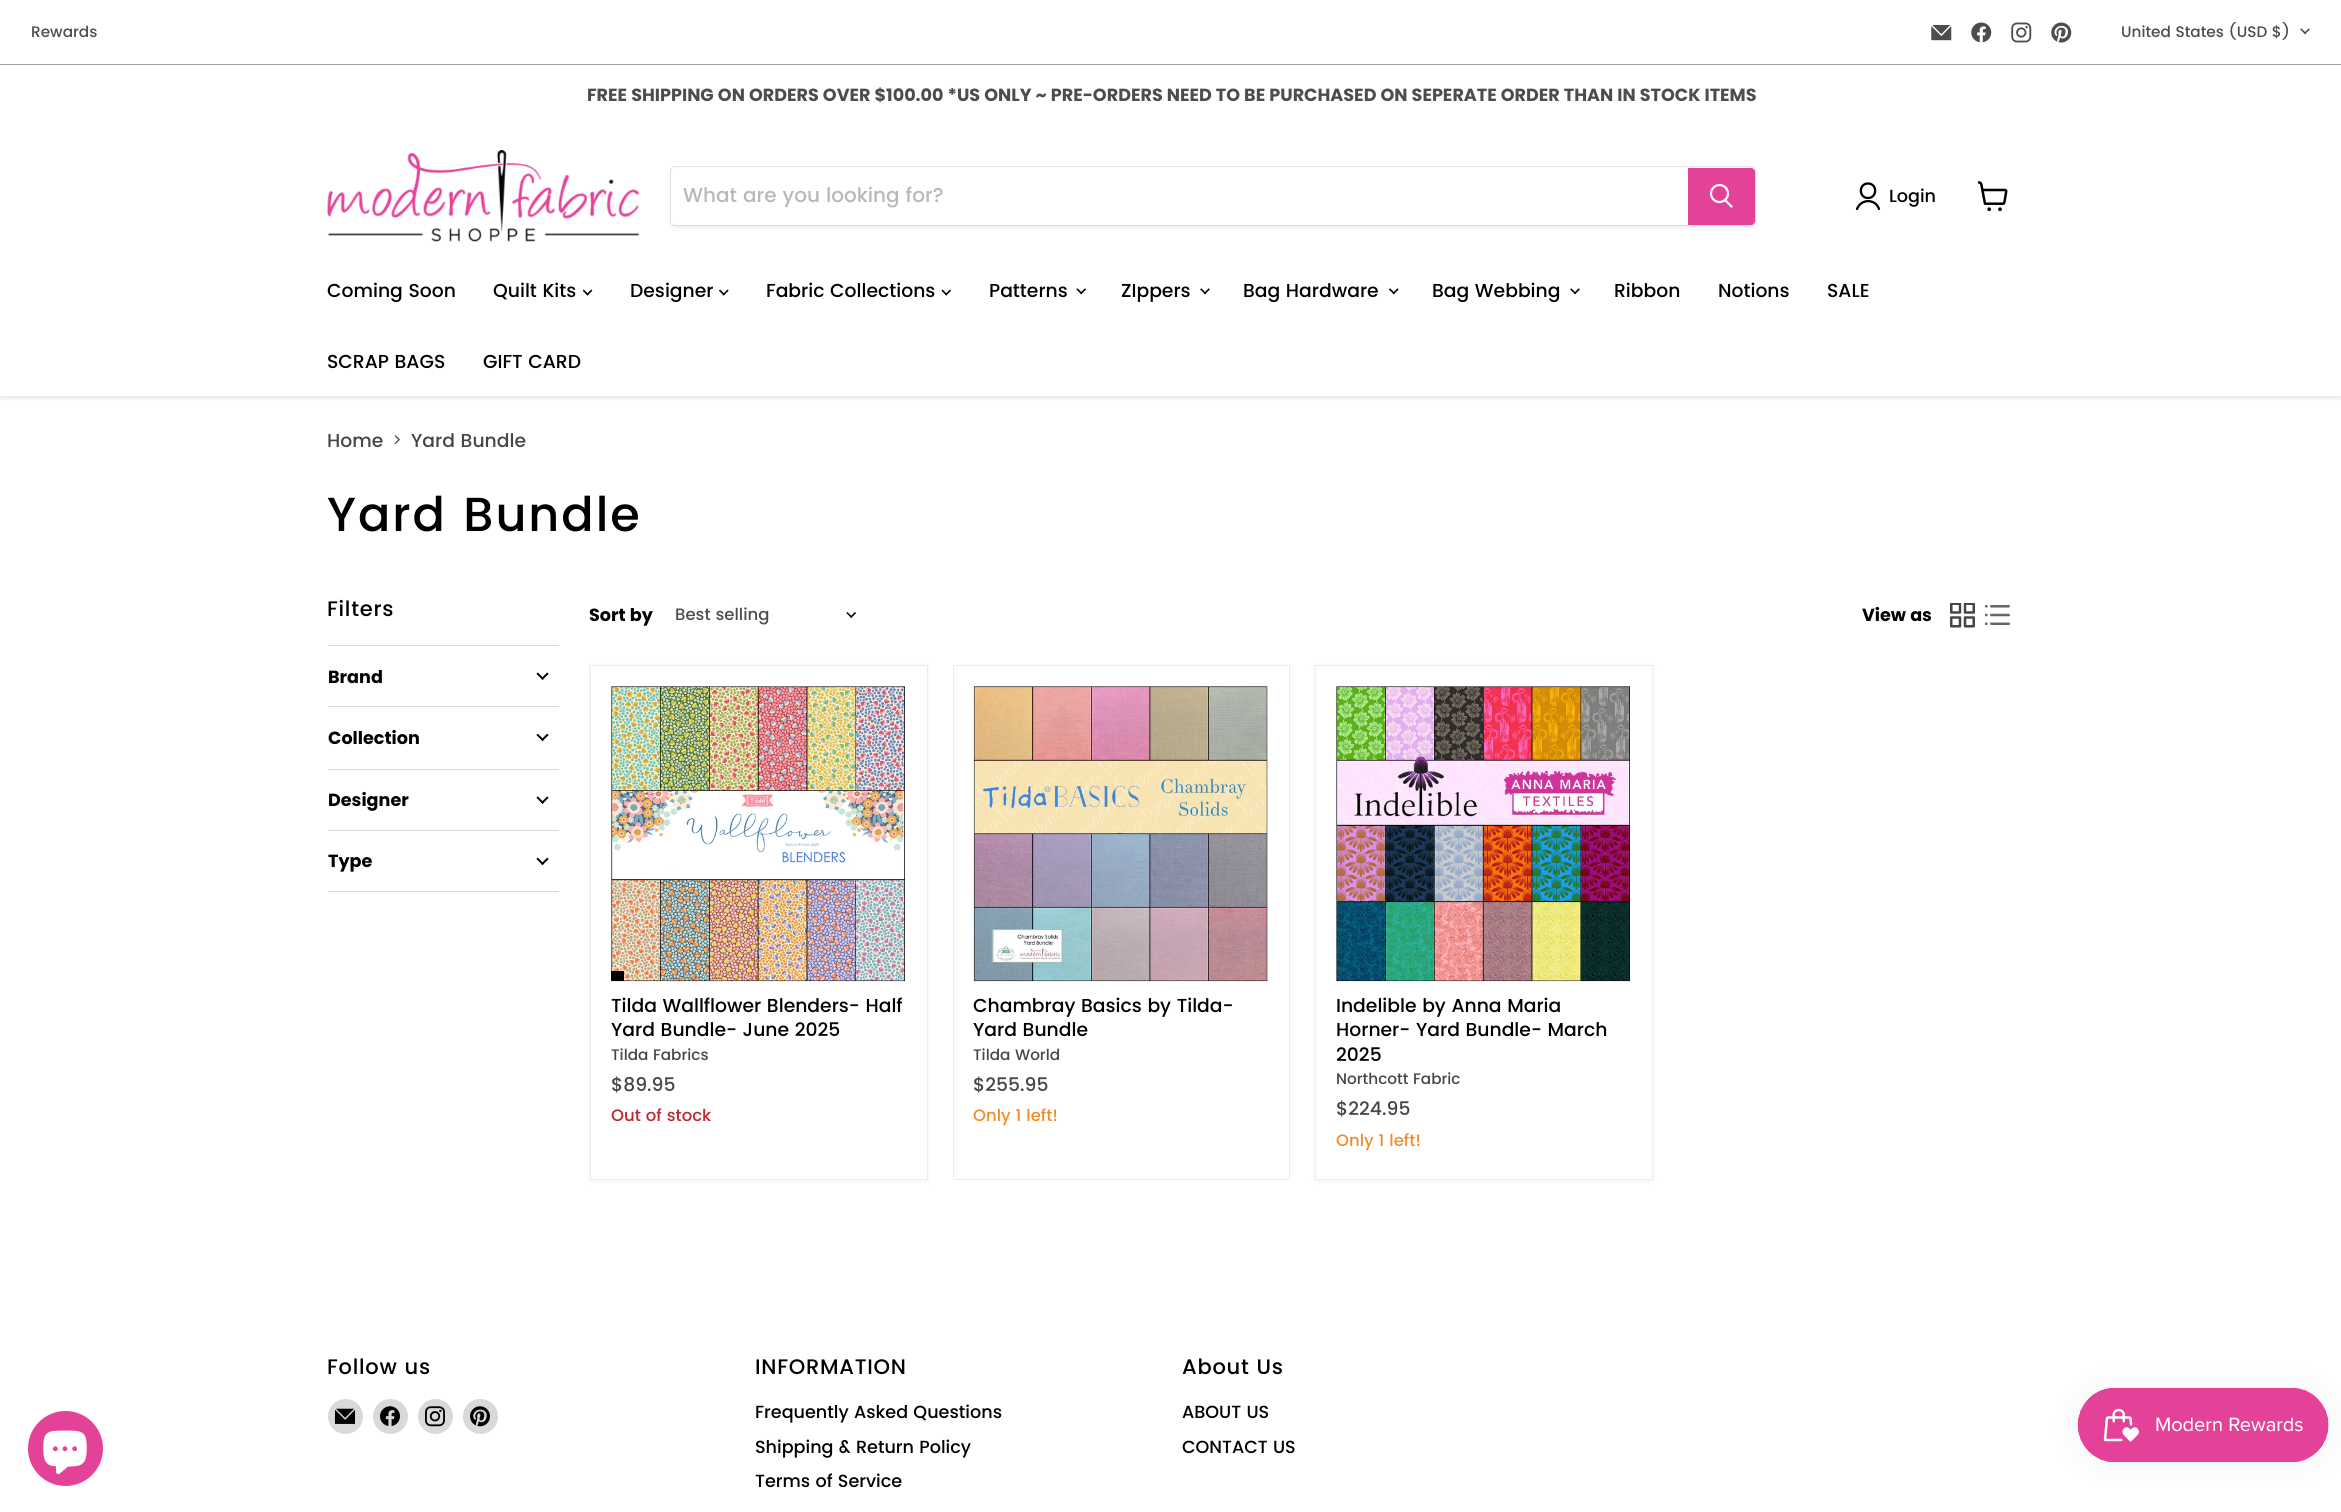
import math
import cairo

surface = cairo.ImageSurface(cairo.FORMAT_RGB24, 2341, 1512)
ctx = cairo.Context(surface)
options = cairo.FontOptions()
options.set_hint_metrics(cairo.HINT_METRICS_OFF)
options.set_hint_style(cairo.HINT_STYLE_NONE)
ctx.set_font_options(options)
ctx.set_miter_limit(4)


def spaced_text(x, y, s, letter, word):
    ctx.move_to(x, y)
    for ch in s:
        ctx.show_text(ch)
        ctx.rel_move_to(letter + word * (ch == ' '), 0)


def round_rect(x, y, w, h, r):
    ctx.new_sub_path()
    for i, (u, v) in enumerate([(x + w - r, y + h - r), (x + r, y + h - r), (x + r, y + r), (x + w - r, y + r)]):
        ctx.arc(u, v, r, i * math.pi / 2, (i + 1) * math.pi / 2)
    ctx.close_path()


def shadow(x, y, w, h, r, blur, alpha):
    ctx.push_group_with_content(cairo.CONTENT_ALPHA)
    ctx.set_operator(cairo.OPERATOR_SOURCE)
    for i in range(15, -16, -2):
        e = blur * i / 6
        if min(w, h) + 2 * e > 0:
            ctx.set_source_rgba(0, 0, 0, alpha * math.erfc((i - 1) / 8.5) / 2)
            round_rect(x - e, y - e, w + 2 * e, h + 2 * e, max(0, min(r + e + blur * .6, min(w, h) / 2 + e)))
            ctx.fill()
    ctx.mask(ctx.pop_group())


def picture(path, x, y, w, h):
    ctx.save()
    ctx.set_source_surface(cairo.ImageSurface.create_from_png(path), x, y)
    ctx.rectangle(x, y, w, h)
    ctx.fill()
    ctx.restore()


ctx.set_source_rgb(1, 1, 1)
ctx.paint()
ctx.set_source_rgb(0.655, 0.639, 0.639)
ctx.rectangle(0, 64, 2341, 1)
ctx.fill()
ctx.select_font_face("Poppins Medium")
ctx.set_font_size(15.25)
ctx.set_source_rgb(0.302, 0.302, 0.302)
ctx.move_to(31, 37)
ctx.show_text("Rewards")
picture("img1.png", 1931, 25, 21, 16)
picture("img2.png", 1971, 22, 21, 21)
picture("img3.png", 2011, 22, 21, 21)
picture("img4.png", 2051, 22, 21, 21)
ctx.move_to(2121, 37)
ctx.show_text("United States (USD $)")
picture("img5.png", 2300, 28, 10, 7)
ctx.save()
ctx.rectangle(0, 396, 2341, 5)
ctx.clip()
ctx.set_source_rgb(0.502, 0.502, 0.502)
shadow(0, 126, 2341, 272, 0, 2.5, 0.25)
ctx.restore()
ctx.set_source_rgb(1, 1, 1)
ctx.rectangle(0, 123, 2341, 2)
ctx.fill()
ctx.select_font_face("Poppins", cairo.FONT_SLANT_NORMAL, cairo.FONT_WEIGHT_BOLD)
ctx.set_font_size(17.58)
ctx.set_source_rgb(0.302, 0.302, 0.302)
ctx.move_to(587, 101)
ctx.show_text("FREE SHIPPING ON ORDERS OVER $100.00 *US ONLY ~ PRE-ORDERS NEED TO BE PURCHASED ON SEPERATE ORDER THAN IN STOCK ITEMS")
picture("img6.png", 327, 150, 312, 92)
ctx.set_source_rgb(0.502, 0.502, 0.502)
shadow(670, 169, 1086, 60, 5, 2, 0.11)
round_rect(670.5, 166.5, 1085, 59, 4.5)
ctx.set_source_rgba(0.502, 0.502, 0.502, 0.2)
ctx.set_line_width(1)
ctx.stroke()
ctx.set_source_rgb(1, 1, 1)
ctx.new_path()
ctx.move_to(675, 168)
ctx.line_to(1688, 168)
ctx.line_to(1688, 225)
ctx.line_to(675, 225)
ctx.curve_to(673, 225, 671, 223, 671, 221)
ctx.line_to(671, 172)
ctx.curve_to(671, 170, 673, 168, 675, 168)
ctx.close_path()
ctx.fill()
ctx.select_font_face("Poppins Medium")
ctx.set_font_size(20)
ctx.set_source_rgb(0.722, 0.722, 0.722)
ctx.move_to(683, 202)
ctx.show_text("What are you looking for?")
ctx.set_source_rgb(0.89, 0.259, 0.596)
ctx.new_path()
ctx.move_to(1688.5, 168.5)
ctx.line_to(1751, 168.5)
ctx.curve_to(1753, 168.5, 1754.5, 170, 1754.5, 172)
ctx.line_to(1754.5, 221)
ctx.curve_to(1754.5, 223, 1753, 224.5, 1751, 224.5)
ctx.line_to(1688.5, 224.5)
ctx.close_path()
ctx.fill_preserve()
ctx.stroke()
ctx.new_path()
ctx.move_to(1731.5, 206.5)
ctx.line_to(1725.5, 200.5)
ctx.set_source_rgb(1, 1, 1)
ctx.set_line_width(2.2)
ctx.set_line_cap(cairo.LINE_CAP_ROUND)
ctx.stroke()
ctx.arc(1719.5, 193.5, 8.5, 0, 2 * math.pi)
ctx.set_line_cap(cairo.LINE_CAP_BUTT)
ctx.stroke()
ctx.new_path()
ctx.move_to(1868, 198)
ctx.curve_to(1877.5, 198, 1877.5, 183.5, 1868, 183.5)
ctx.curve_to(1858.5, 183.5, 1858.5, 198, 1868, 198)
ctx.close_path()
ctx.move_to(1879, 209)
ctx.curve_to(1875.5, 198.5, 1861, 198.5, 1857, 209)
ctx.set_source_rgb(0, 0, 0)
ctx.set_line_width(2.3)
ctx.set_line_cap(cairo.LINE_CAP_ROUND)
ctx.set_line_join(cairo.LINE_JOIN_ROUND)
ctx.stroke()
ctx.set_font_size(17.58)
ctx.move_to(1889, 202)
ctx.show_text("Login")
picture("img7.png", 1978, 181, 30, 30)
ctx.set_font_size(18.75)
ctx.move_to(327, 297)
ctx.show_text("Coming Soon")
ctx.move_to(493, 297)
ctx.show_text("Quilt Kits")
picture("img8.png", 583, 289, 10, 7)
ctx.move_to(630, 297)
ctx.show_text("Designer")
picture("img9.png", 719, 289, 10, 7)
ctx.move_to(766, 297)
ctx.show_text("Fabric Collections")
picture("img10.png", 941, 289, 10, 7)
ctx.move_to(989, 297)
ctx.show_text("Patterns")
picture("img11.png", 1076, 288, 10, 7)
ctx.move_to(1121, 297)
ctx.show_text("ZIppers")
picture("img12.png", 1200, 288, 10, 7)
ctx.move_to(1243, 297)
ctx.show_text("Bag Hardware")
picture("img13.png", 1389, 288, 10, 7)
ctx.move_to(1432, 297)
ctx.show_text("Bag Webbing")
picture("img12.png", 1570, 288, 10, 7)
ctx.move_to(1614, 297)
ctx.show_text("Ribbon")
ctx.move_to(1718, 297)
ctx.show_text("Notions")
ctx.move_to(1827, 297)
ctx.show_text("SALE")
ctx.move_to(327, 368)
ctx.show_text("SCRAP BAGS")
ctx.move_to(483, 368)
ctx.show_text("GIFT CARD")
ctx.set_source_rgb(0.275, 0.275, 0.275)
ctx.move_to(327, 447)
ctx.show_text("Home")
picture("img14.png", 394, 435, 6, 10)
ctx.move_to(411, 447)
ctx.show_text("Yard Bundle")
ctx.set_font_size(47.75)
ctx.set_source_rgb(0, 0, 0)
spaced_text(327, 531, "Yard Bundle", 2, 0)
ctx.set_font_size(21)
spaced_text(327, 616, "Filters", 0.75, 0)
ctx.set_source_rgb(0.851, 0.851, 0.851)
ctx.rectangle(328, 645, 231, 1)
ctx.fill()
ctx.select_font_face("Poppins", cairo.FONT_SLANT_NORMAL, cairo.FONT_WEIGHT_BOLD)
ctx.set_font_size(17.58)
ctx.set_source_rgb(0, 0, 0)
ctx.move_to(328, 683)
ctx.show_text("Brand")
picture("img15.png", 536, 672, 13, 8)
ctx.set_source_rgb(0.851, 0.851, 0.851)
ctx.rectangle(328, 706, 231, 1)
ctx.fill()
ctx.set_source_rgb(0, 0, 0)
ctx.move_to(328, 744)
ctx.show_text("Collection")
picture("img16.png", 536, 734, 13, 8)
ctx.set_source_rgb(0.851, 0.851, 0.851)
ctx.rectangle(328, 769, 231, 1)
ctx.fill()
ctx.set_source_rgb(0, 0, 0)
ctx.move_to(328, 806)
ctx.show_text("Designer")
picture("img17.png", 536, 796, 13, 8)
ctx.set_source_rgb(0.851, 0.851, 0.851)
ctx.rectangle(328, 830, 231, 1)
ctx.fill()
ctx.rectangle(328, 891, 231, 1)
ctx.fill()
ctx.set_source_rgb(0, 0, 0)
ctx.move_to(328, 867)
ctx.show_text("Type")
picture("img18.png", 536, 857, 13, 8)
ctx.move_to(589, 621)
ctx.show_text("Sort by")
ctx.select_font_face("Poppins Medium")
ctx.set_font_size(16.5)
ctx.set_source_rgb(0.302, 0.302, 0.302)
ctx.move_to(675, 620)
ctx.show_text("Best selling")
picture("img19.png", 846, 612, 10, 6)
ctx.select_font_face("Poppins", cairo.FONT_SLANT_NORMAL, cairo.FONT_WEIGHT_BOLD)
ctx.set_font_size(17.58)
ctx.set_source_rgb(0, 0, 0)
ctx.move_to(1862, 621)
ctx.show_text("View as")
picture("img20.png", 1950, 603, 25, 25)
picture("img21.png", 1985, 605, 25, 20)
ctx.set_source_rgb(0.502, 0.502, 0.502)
shadow(590, 666, 338, 515, 0, 2.5, 0.11)
ctx.set_source_rgb(1, 1, 1)
ctx.rectangle(590.5, 665.5, 337, 514)
ctx.fill_preserve()
ctx.set_source_rgb(0.922, 0.922, 0.922)
ctx.set_line_width(1)
ctx.set_line_cap(cairo.LINE_CAP_BUTT)
ctx.set_line_join(cairo.LINE_JOIN_MITER)
ctx.stroke()
picture("img22.png", 611, 686, 294, 296)
ctx.set_source_rgb(0, 0, 0)
ctx.rectangle(611, 971, 13, 10)
ctx.fill()
ctx.select_font_face("Poppins Medium")
ctx.set_font_size(18.75)
ctx.move_to(611, 1012)
ctx.show_text("Tilda Wallflower Blenders- Half")
ctx.move_to(611, 1036)
ctx.show_text("Yard Bundle- June 2025")
ctx.set_font_size(15.25)
ctx.set_source_rgb(0.275, 0.275, 0.275)
ctx.move_to(611, 1060)
ctx.show_text("Tilda Fabrics")
ctx.set_font_size(18.75)
ctx.move_to(611, 1091)
ctx.show_text("$89.95")
ctx.set_font_size(16.5)
ctx.set_source_rgb(0.749, 0.149, 0.184)
ctx.move_to(611, 1121)
ctx.show_text("Out of stock")
ctx.rectangle(953.5, 665.5, 336, 514)
ctx.set_source_rgb(0.922, 0.922, 0.922)
ctx.stroke()
picture("img23.png", 973, 686, 295, 296)
ctx.set_font_size(18.75)
ctx.set_source_rgb(0, 0, 0)
ctx.move_to(973, 1012)
ctx.show_text("Chambray Basics by Tilda-")
ctx.move_to(973, 1036)
ctx.show_text("Yard Bundle")
ctx.set_font_size(15.25)
ctx.set_source_rgb(0.275, 0.275, 0.275)
ctx.move_to(973, 1060)
ctx.show_text("Tilda World")
ctx.set_font_size(18.75)
ctx.move_to(973, 1091)
ctx.show_text("$255.95")
ctx.set_font_size(16.5)
ctx.set_source_rgb(0.949, 0.549, 0.157)
ctx.move_to(973, 1121)
ctx.show_text("Only 1 left!")
ctx.set_source_rgb(0.502, 0.502, 0.502)
shadow(1315, 666, 338, 515, 0, 2.5, 0.11)
ctx.set_source_rgb(1, 1, 1)
ctx.rectangle(1315.5, 665.5, 337, 514)
ctx.fill_preserve()
ctx.set_source_rgb(0.922, 0.922, 0.922)
ctx.stroke()
picture("img24.png", 1336, 686, 294, 296)
ctx.set_font_size(18.75)
ctx.set_source_rgb(0, 0, 0)
ctx.move_to(1336, 1012)
ctx.show_text("Indelible by Anna Maria")
ctx.move_to(1336, 1036)
ctx.show_text("Horner- Yard Bundle- March")
ctx.move_to(1336, 1061)
ctx.show_text("2025")
ctx.set_font_size(15.25)
ctx.set_source_rgb(0.275, 0.275, 0.275)
ctx.move_to(1336, 1084)
ctx.show_text("Northcott Fabric")
ctx.set_font_size(18.75)
ctx.move_to(1336, 1115)
ctx.show_text("$224.95")
ctx.set_font_size(16.5)
ctx.set_source_rgb(0.949, 0.549, 0.157)
ctx.move_to(1336, 1146)
ctx.show_text("Only 1 left!")
ctx.set_source_rgb(0.89, 0.259, 0.596)
ctx.new_path()
ctx.arc(65.5, 1448.5, 37.5, 0, 2 * math.pi)
ctx.fill()
picture("img25.png", 43, 1430, 44, 45)
ctx.set_font_size(21)
ctx.set_source_rgb(0, 0, 0)
spaced_text(327, 1374, "Follow us", 0.75, 0)
ctx.set_source_rgb(0.851, 0.851, 0.851)
ctx.new_path()
ctx.arc(345.5, 1416.5, 17.5, 0, 2 * math.pi)
ctx.fill()
picture("img26.png", 335, 1408, 20, 16)
ctx.arc(390.5, 1416.5, 17.5, 0, 2 * math.pi)
ctx.fill()
picture("img27.png", 380, 1406, 20, 20)
ctx.arc(435.5, 1416.5, 17.5, 0, 2 * math.pi)
ctx.fill()
picture("img28.png", 425, 1406, 20, 21)
ctx.arc(480.5, 1416.5, 17.5, 0, 2 * math.pi)
ctx.fill()
picture("img29.png", 470, 1406, 20, 21)
ctx.set_source_rgb(0, 0, 0)
spaced_text(755, 1374, "INFORMATION", 0.75, 0)
ctx.set_font_size(17.58)
ctx.move_to(755, 1418)
ctx.show_text("Frequently Asked Questions")
ctx.move_to(755, 1453)
ctx.show_text("Shipping & Return Policy")
ctx.move_to(755, 1487)
ctx.show_text("Terms of Service")
ctx.set_font_size(21)
spaced_text(1182, 1374, "About Us", 0.75, 0)
ctx.set_font_size(17.58)
ctx.move_to(1182, 1418)
ctx.show_text("ABOUT US")
ctx.move_to(1182, 1453)
ctx.show_text("CONTACT US")
ctx.set_source_rgb(0, 0, 0)
shadow(2078, 1388, 251, 75, 37.5, 15.5, 0.05)
picture("img30.png", 2077, 1387, 252, 76)
surface.write_to_png("page.png")
